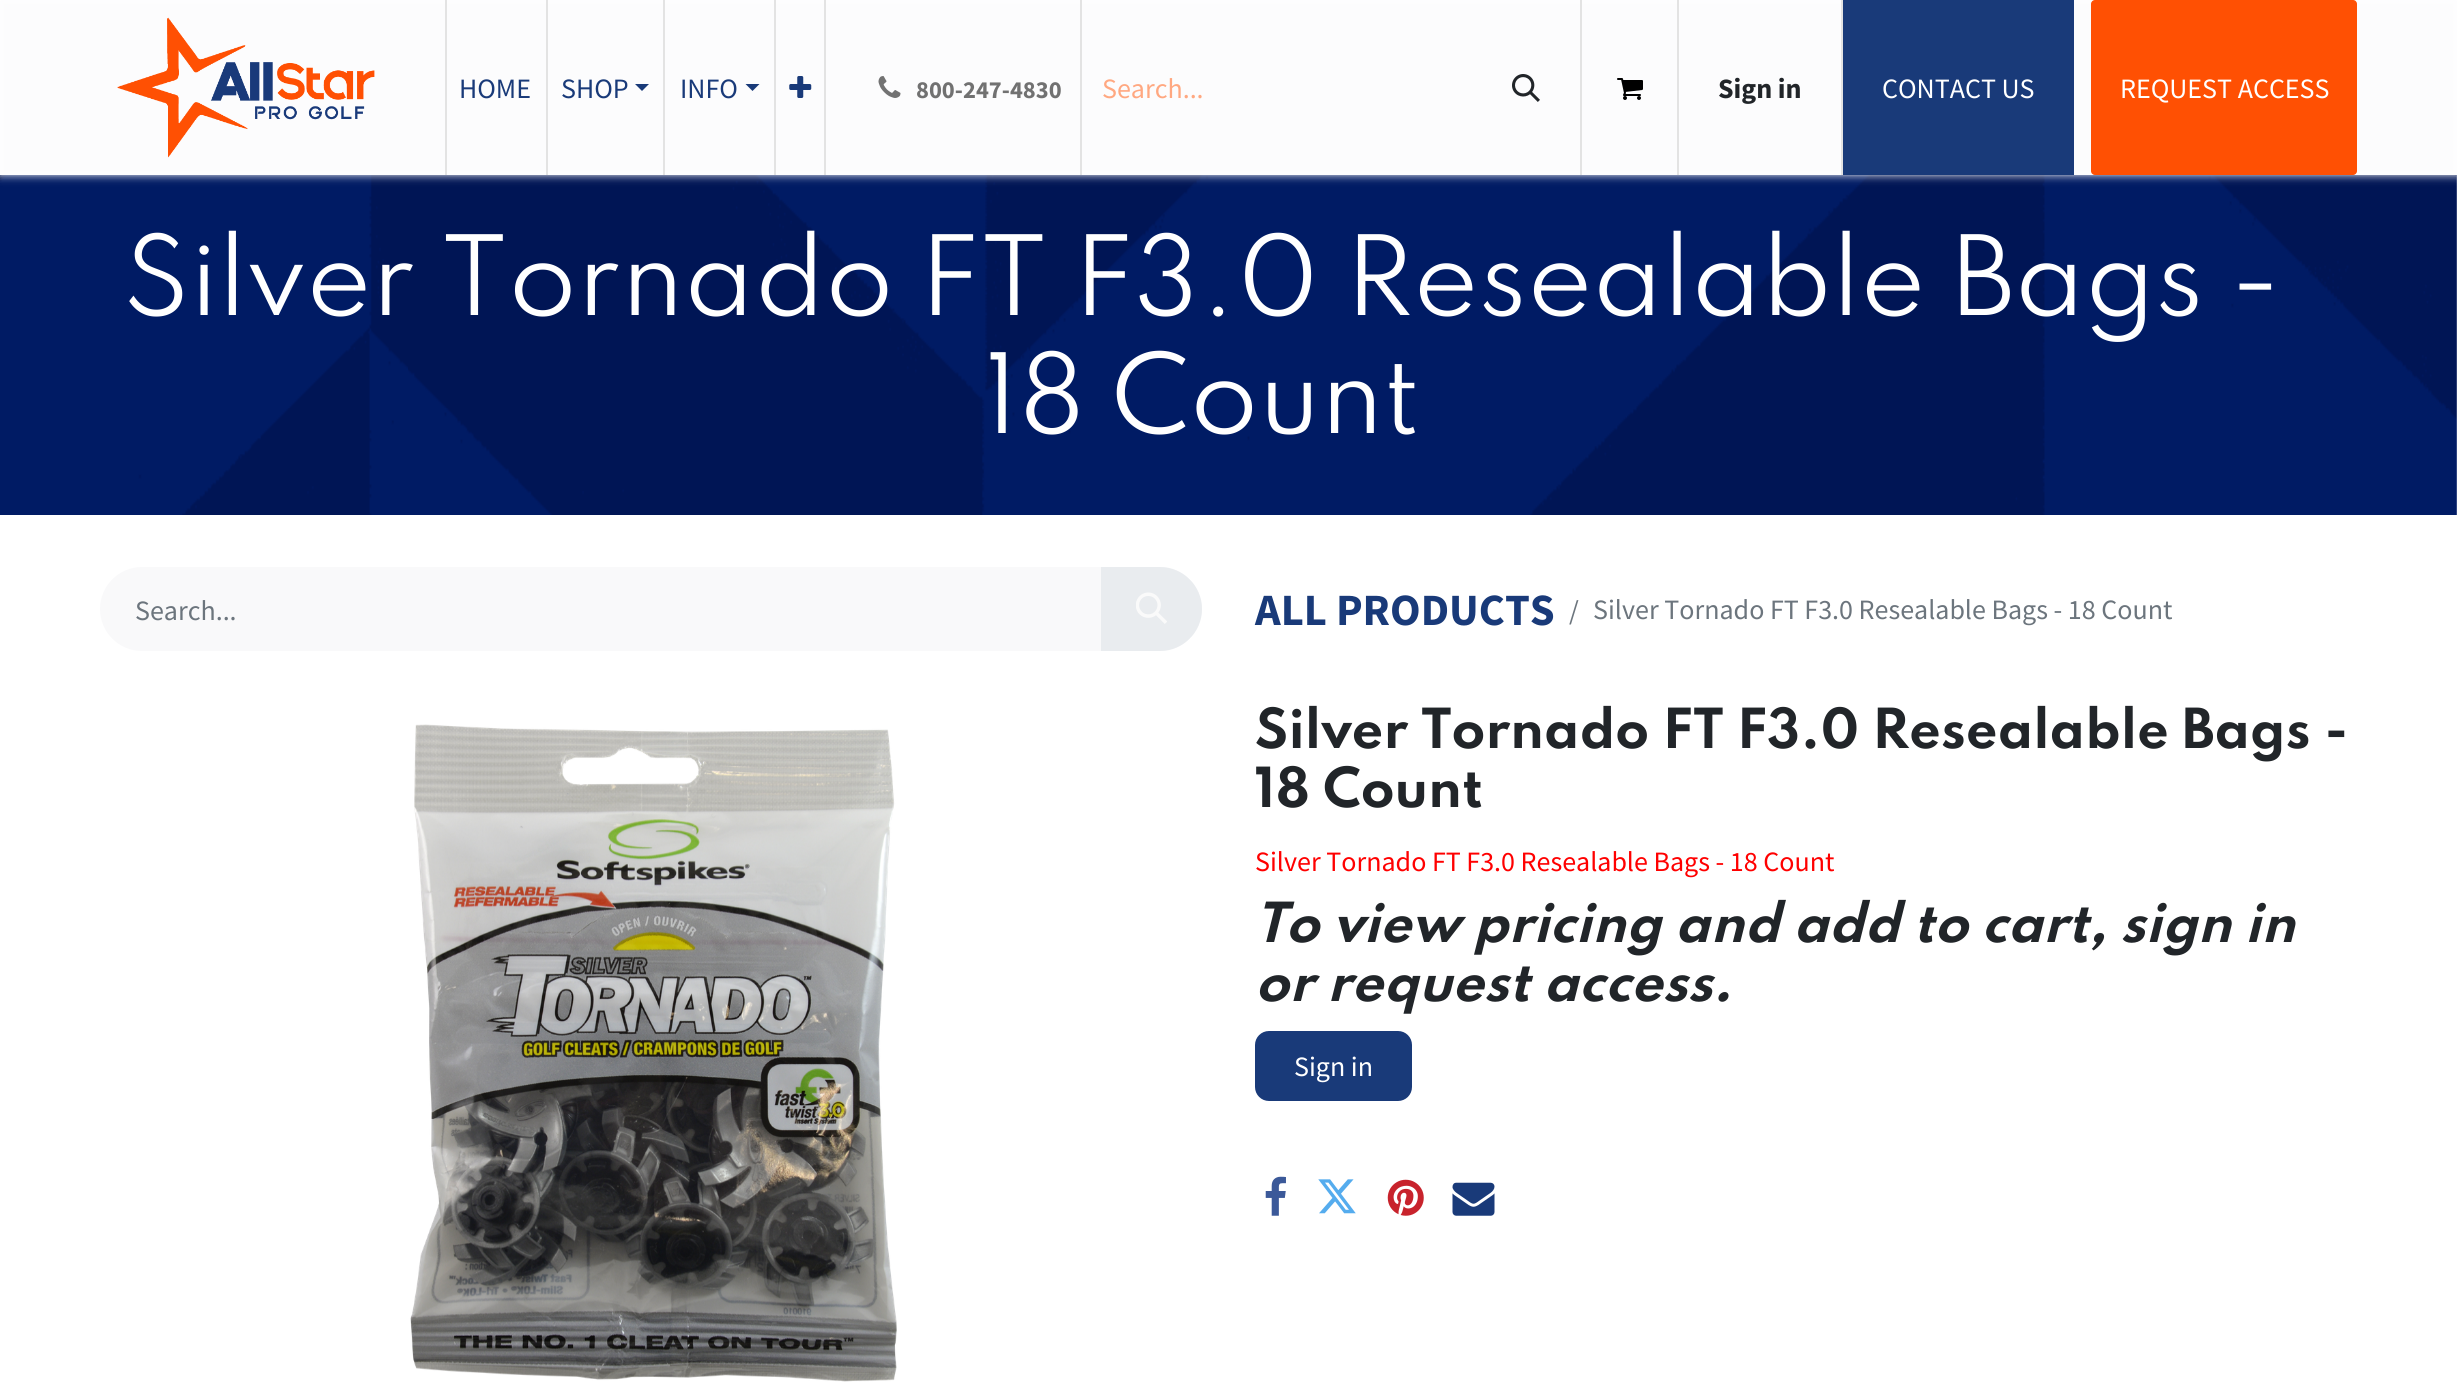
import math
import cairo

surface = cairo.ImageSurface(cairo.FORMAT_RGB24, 2457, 1388)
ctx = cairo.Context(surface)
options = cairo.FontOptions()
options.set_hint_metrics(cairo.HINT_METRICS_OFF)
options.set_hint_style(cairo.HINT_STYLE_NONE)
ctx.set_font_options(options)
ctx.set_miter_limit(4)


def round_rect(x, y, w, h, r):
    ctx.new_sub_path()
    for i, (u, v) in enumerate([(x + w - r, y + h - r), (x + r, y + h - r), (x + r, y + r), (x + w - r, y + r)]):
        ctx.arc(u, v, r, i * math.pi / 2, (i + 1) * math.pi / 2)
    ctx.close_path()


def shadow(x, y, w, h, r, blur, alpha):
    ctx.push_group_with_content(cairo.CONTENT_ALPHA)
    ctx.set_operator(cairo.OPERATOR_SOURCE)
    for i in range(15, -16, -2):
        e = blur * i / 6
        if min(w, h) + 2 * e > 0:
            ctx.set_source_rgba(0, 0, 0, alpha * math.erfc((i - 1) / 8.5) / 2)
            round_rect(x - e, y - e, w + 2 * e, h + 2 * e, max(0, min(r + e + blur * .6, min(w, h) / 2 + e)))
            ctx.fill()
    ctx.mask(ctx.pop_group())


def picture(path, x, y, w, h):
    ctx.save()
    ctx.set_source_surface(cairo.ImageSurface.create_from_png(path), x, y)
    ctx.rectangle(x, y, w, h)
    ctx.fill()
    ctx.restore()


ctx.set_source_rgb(1, 1, 1)
ctx.paint()
picture("img6.png", 0, 175, 2457, 340)
ctx.set_source_rgb(0.988, 0.988, 0.992)
shadow(0, 0, 2457, 175, 0, 4.5, 1)
picture("img1.png", 117, 17, 258, 141)
ctx.set_source_rgb(0.89, 0.89, 0.89)
ctx.rectangle(824, 0, 2, 175)
ctx.fill()
ctx.rectangle(445, 0, 2, 175)
ctx.fill()
ctx.select_font_face("Source Sans Pro")
ctx.set_font_size(28)
ctx.set_source_rgb(0.098, 0.227, 0.475)
ctx.move_to(459, 98)
ctx.show_text("HOME")
ctx.set_source_rgb(0.89, 0.89, 0.89)
ctx.rectangle(546, 0, 2, 175)
ctx.fill()
ctx.set_source_rgb(0.098, 0.227, 0.475)
ctx.move_to(561, 98)
ctx.show_text("SHOP")
ctx.new_path()
ctx.move_to(635, 84)
ctx.line_to(649, 84)
ctx.line_to(642, 91)
ctx.close_path()
ctx.fill()
ctx.set_source_rgb(0.89, 0.89, 0.89)
ctx.rectangle(663, 0, 2, 175)
ctx.fill()
ctx.set_source_rgb(0.098, 0.227, 0.475)
ctx.move_to(680, 98)
ctx.show_text("INFO")
ctx.new_path()
ctx.move_to(745.5, 84)
ctx.line_to(759.5, 84)
ctx.line_to(752.5, 91)
ctx.close_path()
ctx.fill()
ctx.set_source_rgb(0.89, 0.89, 0.89)
ctx.rectangle(774, 0, 2, 175)
ctx.fill()
picture("img2.png", 789, 76, 23, 22)
picture("img3.png", 878, 76, 23, 22)
ctx.select_font_face("Source Sans Pro", cairo.FONT_SLANT_NORMAL, cairo.FONT_WEIGHT_BOLD)
ctx.set_font_size(24.5)
ctx.set_source_rgb(0.443, 0.443, 0.443)
ctx.move_to(916, 98)
ctx.show_text("800-247-4830")
ctx.set_source_rgb(0.89, 0.89, 0.89)
ctx.rectangle(1080, 0, 2, 175)
ctx.fill()
ctx.select_font_face("Source Sans Pro")
ctx.set_font_size(28)
ctx.set_source_rgb(1, 0.659, 0.506)
ctx.move_to(1102, 98)
ctx.show_text("Search...")
picture("img4.png", 1512, 74, 28, 28)
ctx.set_source_rgb(0.89, 0.89, 0.89)
ctx.rectangle(1580, 0, 2, 175)
ctx.fill()
picture("img5.png", 1617, 78, 26, 22)
ctx.rectangle(1677, 0, 2, 175)
ctx.fill()
ctx.select_font_face("Source Sans Pro", cairo.FONT_SLANT_NORMAL, cairo.FONT_WEIGHT_BOLD)
ctx.set_source_rgb(0.129, 0.145, 0.161)
ctx.move_to(1718, 98)
ctx.show_text("Sign in")
ctx.set_source_rgb(0.89, 0.89, 0.89)
ctx.rectangle(1841, 0, 2, 175)
ctx.fill()
ctx.set_source_rgb(0.098, 0.227, 0.475)
ctx.rectangle(1843, 0, 231, 175)
ctx.fill()
ctx.select_font_face("Source Sans Pro")
ctx.set_source_rgb(1, 1, 1)
ctx.move_to(1882, 98)
ctx.show_text("CONTACT US")
ctx.set_source_rgb(1, 0.314, 0.012)
round_rect(2091, 0, 266, 175, 4)
ctx.fill()
ctx.set_source_rgb(1, 1, 1)
ctx.move_to(2120, 98)
ctx.show_text("REQUEST ACCESS")
ctx.select_font_face("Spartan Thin")
ctx.set_font_size(98)
ctx.move_to(123, 315)
ctx.show_text("Silver Tornado FT F3.0 Resealable Bags -")
ctx.move_to(984, 433)
ctx.show_text("18 Count")
ctx.set_source_rgb(0.973, 0.976, 0.98)
round_rect(100, 567, 1102, 84, 42)
ctx.fill()
ctx.select_font_face("Source Sans Pro")
ctx.set_font_size(28)
ctx.set_source_rgb(0.424, 0.459, 0.49)
ctx.move_to(135, 620)
ctx.show_text("Search...")
ctx.set_source_rgb(0.914, 0.925, 0.937)
ctx.new_path()
ctx.move_to(1101, 567)
ctx.line_to(1160, 567)
ctx.curve_to(1183, 567, 1202, 586, 1202, 609)
ctx.curve_to(1202, 632, 1183, 651, 1160, 651)
ctx.line_to(1101, 651)
ctx.close_path()
ctx.fill()
picture("img7.png", 1136, 592, 31, 32)
ctx.select_font_face("Source Sans Pro", cairo.FONT_SLANT_NORMAL, cairo.FONT_WEIGHT_BOLD)
ctx.set_font_size(44.75)
ctx.set_source_rgb(0.098, 0.227, 0.475)
ctx.move_to(1255, 625)
ctx.show_text("ALL PRODUCTS")
ctx.select_font_face("Source Sans Pro")
ctx.set_font_size(28)
ctx.set_source_rgb(0.424, 0.459, 0.49)
ctx.move_to(1569, 620)
ctx.show_text("/")
ctx.move_to(1593, 619)
ctx.show_text("Silver Tornado FT F3.0 Resealable Bags - 18 Count")
picture("img8.png", 410, 724, 487, 658)
ctx.select_font_face("Spartan Thin", cairo.FONT_SLANT_NORMAL, cairo.FONT_WEIGHT_BOLD)
ctx.set_font_size(49)
ctx.set_source_rgb(0.129, 0.145, 0.161)
ctx.move_to(1255, 748)
ctx.show_text("Silver Tornado FT F3.0 Resealable Bags -")
ctx.move_to(1255, 807)
ctx.show_text("18 Count")
ctx.select_font_face("Source Sans Pro")
ctx.set_font_size(28)
ctx.set_source_rgb(1, 0, 0)
ctx.move_to(1255, 871)
ctx.show_text("Silver Tornado FT F3.0 Resealable Bags - 18 Count")
ctx.select_font_face("Spartan Thin", cairo.FONT_SLANT_ITALIC, cairo.FONT_WEIGHT_BOLD)
ctx.set_font_size(49)
ctx.set_source_rgb(0.129, 0.145, 0.161)
ctx.move_to(1255, 942)
ctx.show_text("To view pricing and add to cart, sign in")
ctx.move_to(1255, 1001)
ctx.show_text("or request access.")
ctx.set_source_rgb(0.098, 0.227, 0.475)
round_rect(1256, 1032, 155, 68, 13)
ctx.fill_preserve()
ctx.stroke()
ctx.select_font_face("Source Sans Pro")
ctx.set_font_size(28)
ctx.set_source_rgb(1, 1, 1)
ctx.move_to(1294, 1076)
ctx.show_text("Sign in")
picture("img9.png", 1265, 1176, 21, 40)
picture("img10.png", 1318, 1179, 38, 35)
picture("img11.png", 1387, 1179, 37, 37)
picture("img12.png", 1452, 1182, 43, 34)
surface.write_to_png("page.png")
